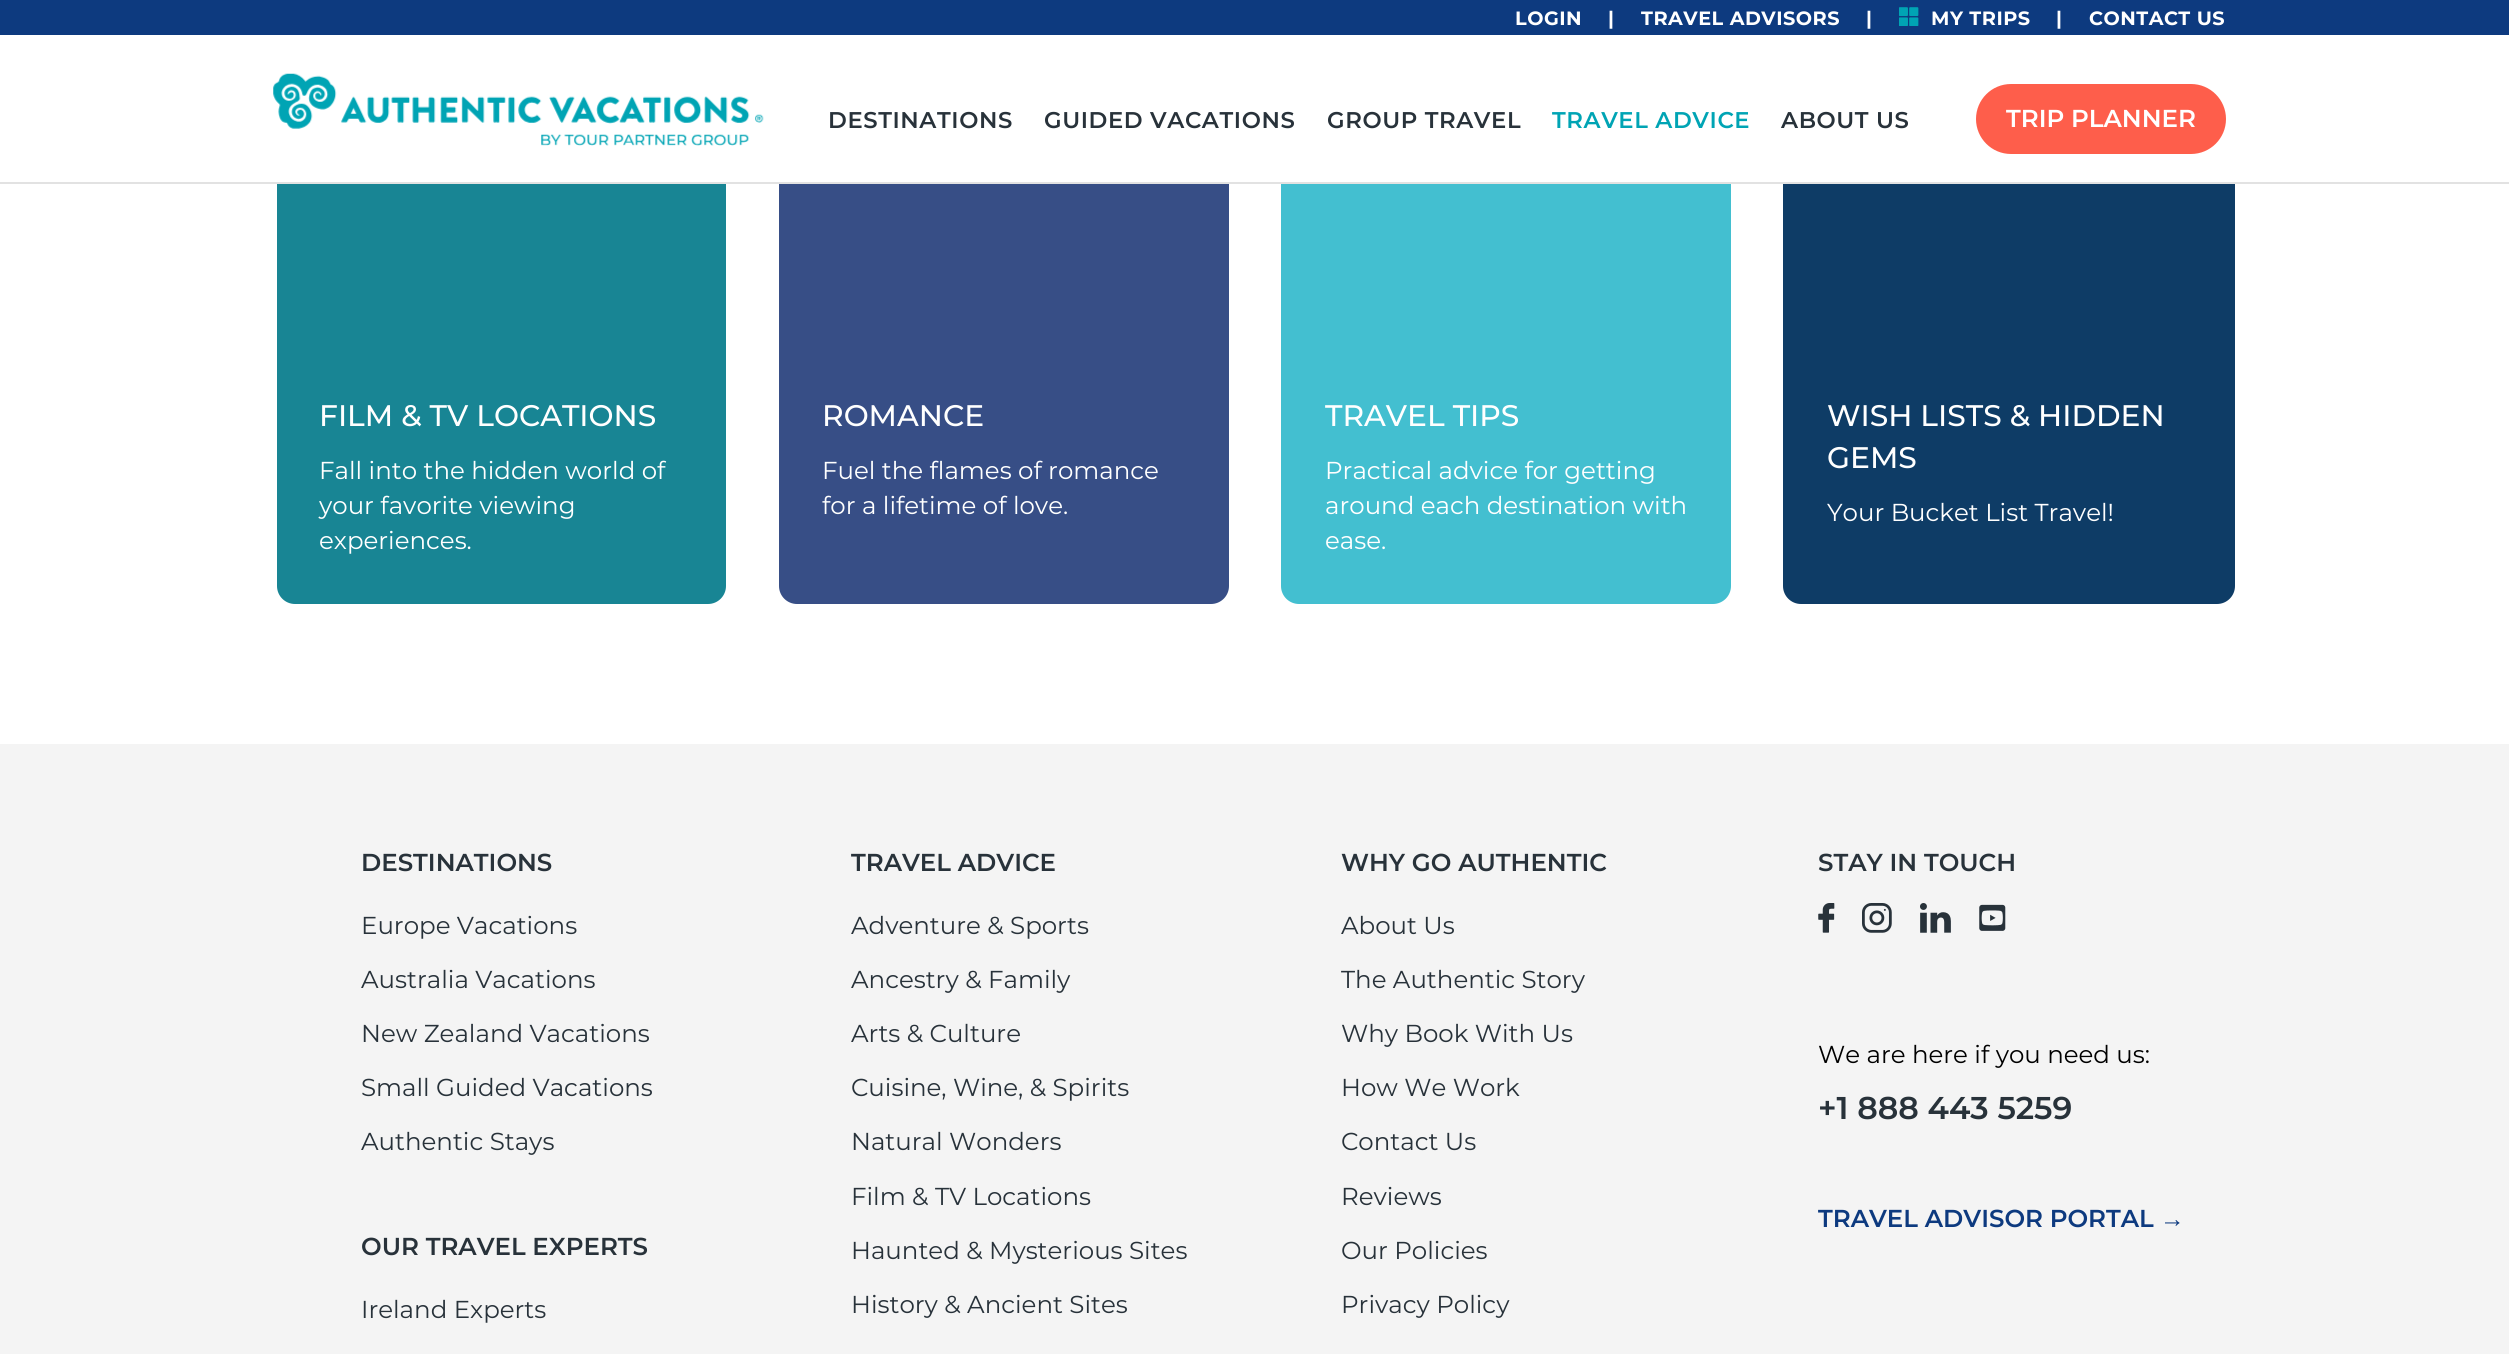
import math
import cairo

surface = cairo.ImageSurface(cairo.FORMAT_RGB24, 2509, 1354)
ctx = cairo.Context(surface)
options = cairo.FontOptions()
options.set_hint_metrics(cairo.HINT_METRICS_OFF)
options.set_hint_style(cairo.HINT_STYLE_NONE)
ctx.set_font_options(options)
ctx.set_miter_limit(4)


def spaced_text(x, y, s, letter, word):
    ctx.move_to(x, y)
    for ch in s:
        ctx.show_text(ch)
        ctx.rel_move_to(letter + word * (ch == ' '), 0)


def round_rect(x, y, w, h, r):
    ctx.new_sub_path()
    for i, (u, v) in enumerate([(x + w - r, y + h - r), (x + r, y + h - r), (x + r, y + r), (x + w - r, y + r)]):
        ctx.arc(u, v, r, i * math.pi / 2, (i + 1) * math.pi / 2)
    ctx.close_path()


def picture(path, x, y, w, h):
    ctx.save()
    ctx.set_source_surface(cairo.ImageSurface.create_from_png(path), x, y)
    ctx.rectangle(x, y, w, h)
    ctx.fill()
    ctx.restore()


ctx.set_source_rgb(1, 1, 1)
ctx.paint()
ctx.set_source_rgb(0.051, 0.227, 0.498)
ctx.rectangle(0, 0, 2509, 35)
ctx.fill()
ctx.select_font_face("Montserrat", cairo.FONT_SLANT_NORMAL, cairo.FONT_WEIGHT_BOLD)
ctx.set_font_size(19.25)
ctx.set_source_rgb(1, 1, 1)
spaced_text(1515, 25, "LOGIN", 0.5, 0)
spaced_text(1608, 25, "|", 0.5, 0)
spaced_text(1641, 25, "TRAVEL ADVISORS", 0.5, 0)
spaced_text(1866, 25, "|", 0.5, 0)
picture("img1.png", 1899, 7, 20, 19)
spaced_text(1931, 25, "MY TRIPS", 0.5, 0)
spaced_text(2056, 25, "|", 0.5, 0)
spaced_text(2089, 25, "CONTACT US", 0.5, 0)
ctx.set_source_rgb(0.094, 0.522, 0.58)
round_rect(277, 149, 449, 455, 18)
ctx.fill()
ctx.set_source_rgb(0.216, 0.306, 0.525)
round_rect(779, 149, 450, 455, 18)
ctx.fill()
ctx.set_source_rgb(0.263, 0.749, 0.816)
round_rect(1281, 149, 450, 455, 18)
ctx.fill()
ctx.set_source_rgb(0.055, 0.235, 0.4)
round_rect(1783, 149, 452, 455, 18)
ctx.fill()
ctx.set_source_rgb(1, 1, 1)
ctx.rectangle(277, 149, 1958, 33)
ctx.fill()
ctx.set_source_rgb(0.886, 0.886, 0.886)
ctx.rectangle(0, 182, 2509, 2)
ctx.fill()
picture("img2.png", 273, 73, 491, 73)
ctx.select_font_face("Montserrat SemiBold")
ctx.set_font_size(22.75)
ctx.set_source_rgb(0.157, 0.196, 0.227)
spaced_text(828, 128, "DESTINATIONS", 0.6, 0)
spaced_text(1044, 128, "GUIDED VACATIONS", 0.6, 0)
spaced_text(1327, 128, "GROUP TRAVEL", 0.6, 0)
ctx.set_source_rgb(0, 0.643, 0.706)
spaced_text(1552, 128, "TRAVEL ADVICE", 0.6, 0)
ctx.set_source_rgb(0.157, 0.196, 0.227)
spaced_text(1781, 128, "ABOUT US", 0.6, 0)
ctx.set_source_rgb(0.996, 0.369, 0.294)
round_rect(1978, 86, 246, 66, 33)
ctx.fill_preserve()
ctx.set_line_width(4)
ctx.stroke()
ctx.set_font_size(24.5)
ctx.set_source_rgb(1, 1, 1)
ctx.move_to(2006, 127)
ctx.show_text("TRIP PLANNER")
ctx.select_font_face("Montserrat Medium")
ctx.set_font_size(29.75)
ctx.move_to(319, 426)
ctx.show_text("FILM & TV LOCATIONS")
ctx.select_font_face("Montserrat")
ctx.set_font_size(24.5)
ctx.move_to(319, 479)
ctx.show_text("Fall into the hidden world of")
ctx.move_to(319, 514)
ctx.show_text("your favorite viewing")
ctx.move_to(319, 549)
ctx.show_text("experiences.")
ctx.select_font_face("Montserrat Medium")
ctx.set_font_size(29.75)
ctx.move_to(822, 426)
ctx.show_text("ROMANCE")
ctx.select_font_face("Montserrat")
ctx.set_font_size(24.5)
ctx.move_to(822, 479)
ctx.show_text("Fuel the flames of romance")
ctx.move_to(822, 514)
ctx.show_text("for a lifetime of love.")
ctx.select_font_face("Montserrat Medium")
ctx.set_font_size(29.75)
ctx.move_to(1325, 426)
ctx.show_text("TRAVEL TIPS")
ctx.select_font_face("Montserrat")
ctx.set_font_size(24.5)
ctx.move_to(1325, 479)
ctx.show_text("Practical advice for getting")
ctx.move_to(1325, 514)
ctx.show_text("around each destination with")
ctx.move_to(1325, 549)
ctx.show_text("ease.")
ctx.select_font_face("Montserrat Medium")
ctx.set_font_size(29.75)
ctx.move_to(1827, 426)
ctx.show_text("WISH LISTS & HIDDEN")
ctx.move_to(1827, 468)
ctx.show_text("GEMS")
ctx.select_font_face("Montserrat")
ctx.set_font_size(24.5)
ctx.move_to(1827, 521)
ctx.show_text("Your Bucket List Travel!")
ctx.set_source_rgb(0.957, 0.957, 0.957)
ctx.rectangle(0, 744, 2509, 610)
ctx.fill()
ctx.select_font_face("Montserrat SemiBold")
ctx.set_source_rgb(0.157, 0.196, 0.227)
ctx.move_to(361, 871)
ctx.show_text("DESTINATIONS")
ctx.select_font_face("Montserrat")
ctx.move_to(361, 934)
ctx.show_text("Europe Vacations")
ctx.move_to(361, 988)
ctx.show_text("Australia Vacations")
ctx.move_to(361, 1042)
ctx.show_text("New Zealand Vacations")
ctx.move_to(361, 1096)
ctx.show_text("Small Guided Vacations")
ctx.move_to(361, 1150)
ctx.show_text("Authentic Stays")
ctx.select_font_face("Montserrat SemiBold")
ctx.move_to(361, 1255)
ctx.show_text("OUR TRAVEL EXPERTS")
ctx.select_font_face("Montserrat")
ctx.move_to(361, 1318)
ctx.show_text("Ireland Experts")
ctx.select_font_face("Montserrat SemiBold")
ctx.move_to(851, 871)
ctx.show_text("TRAVEL ADVICE")
ctx.select_font_face("Montserrat")
ctx.move_to(851, 934)
ctx.show_text("Adventure & Sports")
ctx.move_to(851, 988)
ctx.show_text("Ancestry & Family")
ctx.move_to(851, 1042)
ctx.show_text("Arts & Culture")
ctx.move_to(851, 1096)
ctx.show_text("Cuisine, Wine, & Spirits")
ctx.move_to(851, 1150)
ctx.show_text("Natural Wonders")
ctx.move_to(851, 1205)
ctx.show_text("Film & TV Locations")
ctx.move_to(851, 1259)
ctx.show_text("Haunted & Mysterious Sites")
ctx.move_to(851, 1313)
ctx.show_text("History & Ancient Sites")
ctx.select_font_face("Montserrat SemiBold")
ctx.move_to(1341, 871)
ctx.show_text("WHY GO AUTHENTIC")
ctx.select_font_face("Montserrat")
ctx.move_to(1341, 934)
ctx.show_text("About Us")
ctx.move_to(1341, 988)
ctx.show_text("The Authentic Story")
ctx.move_to(1341, 1042)
ctx.show_text("Why Book With Us")
ctx.move_to(1341, 1096)
ctx.show_text("How We Work")
ctx.move_to(1341, 1150)
ctx.show_text("Contact Us")
ctx.move_to(1341, 1205)
ctx.show_text("Reviews")
ctx.move_to(1341, 1259)
ctx.show_text("Our Policies")
ctx.move_to(1341, 1313)
ctx.show_text("Privacy Policy")
ctx.select_font_face("Montserrat SemiBold")
ctx.move_to(1818, 871)
ctx.show_text("STAY IN TOUCH")
picture("img3.png", 1818, 903, 17, 30)
picture("img4.png", 1862, 903, 30, 30)
picture("img5.png", 1920, 903, 31, 30)
picture("img6.png", 1979, 904, 27, 27)
ctx.select_font_face("Montserrat")
ctx.set_source_rgb(0, 0, 0)
ctx.move_to(1818, 1063)
ctx.show_text("We are here if you need us:")
ctx.select_font_face("Montserrat SemiBold")
ctx.set_font_size(31.5)
ctx.set_source_rgb(0.157, 0.196, 0.227)
ctx.move_to(1818, 1119)
ctx.show_text("+1 888 443 5259")
ctx.set_font_size(24.5)
ctx.set_source_rgb(0.051, 0.227, 0.498)
ctx.move_to(1818, 1227)
ctx.show_text("TRAVEL ADVISOR PORTAL")
ctx.select_font_face("Liberation Sans", cairo.FONT_SLANT_NORMAL, cairo.FONT_WEIGHT_BOLD)
ctx.move_to(2160, 1227)
ctx.show_text("→")
surface.write_to_png("page.png")
